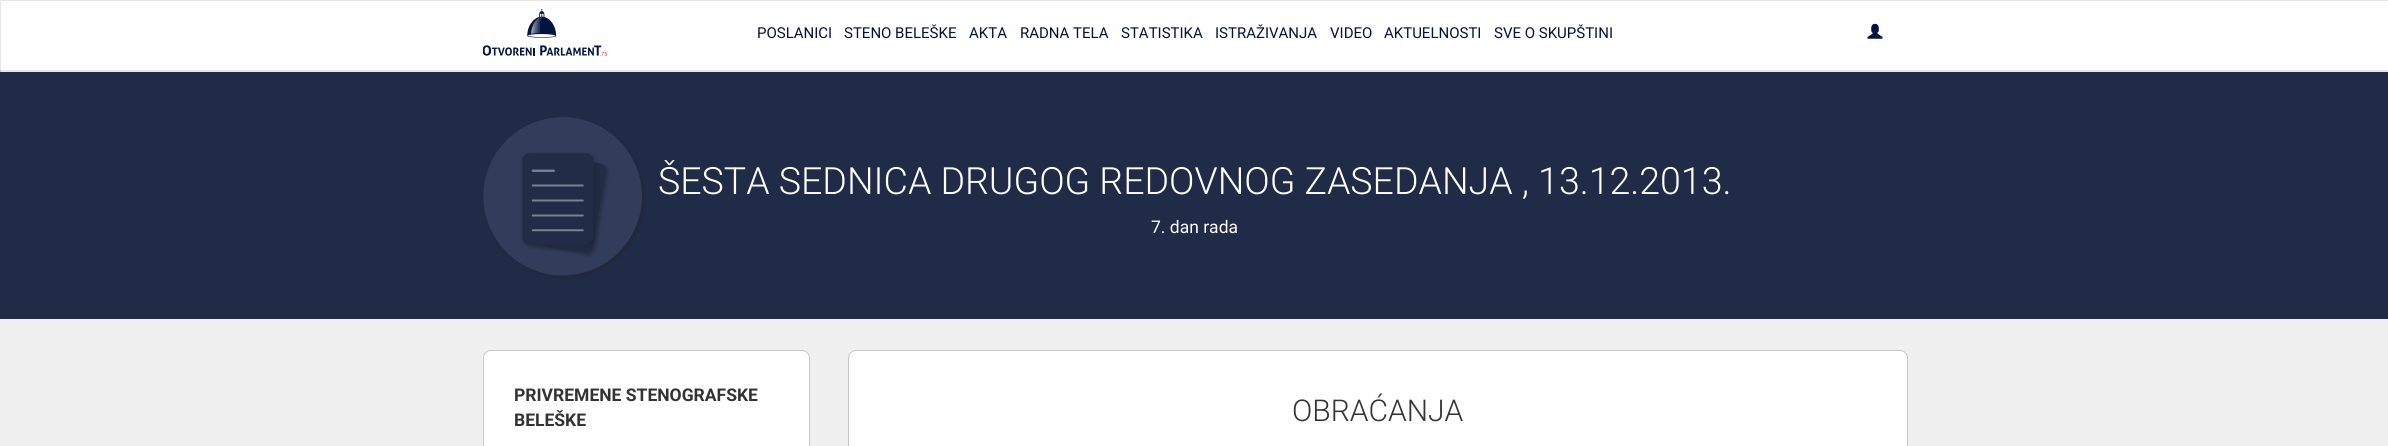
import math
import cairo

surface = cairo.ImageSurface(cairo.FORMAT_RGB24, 2388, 446)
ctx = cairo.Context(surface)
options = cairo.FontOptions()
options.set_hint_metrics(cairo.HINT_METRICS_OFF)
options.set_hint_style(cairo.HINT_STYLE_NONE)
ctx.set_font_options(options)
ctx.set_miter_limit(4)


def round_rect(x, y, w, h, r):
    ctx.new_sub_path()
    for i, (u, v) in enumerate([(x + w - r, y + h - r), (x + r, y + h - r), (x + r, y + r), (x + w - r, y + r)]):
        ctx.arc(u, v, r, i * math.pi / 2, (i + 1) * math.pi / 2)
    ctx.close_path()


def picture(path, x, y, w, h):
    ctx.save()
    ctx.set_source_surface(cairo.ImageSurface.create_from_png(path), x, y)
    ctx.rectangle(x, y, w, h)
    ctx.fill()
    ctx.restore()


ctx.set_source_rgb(0.941, 0.941, 0.941)
ctx.paint()
ctx.set_source_rgb(1, 1, 1)
ctx.rectangle(1, 1, 2387, 69)
ctx.fill()
ctx.set_source_rgb(0.906, 0.906, 0.906)
ctx.rectangle(0, 0, 2388, 1)
ctx.fill()
ctx.set_source_rgb(0.125, 0.173, 0.278)
ctx.rectangle(0, 70, 2388, 249)
ctx.fill()
ctx.set_source_rgb(0.902, 0.902, 0.902)
ctx.new_path()
ctx.move_to(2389, 72)
ctx.line_to(0, 72)
ctx.line_to(1, 70)
ctx.line_to(2388, 70)
ctx.close_path()
ctx.fill()
ctx.set_source_rgb(0.906, 0.906, 0.906)
ctx.new_path()
ctx.move_to(0, 72)
ctx.line_to(0, 0)
ctx.line_to(1, 1)
ctx.line_to(1, 70)
ctx.close_path()
ctx.fill()
picture("img1.png", 483, 9, 125, 47)
ctx.select_font_face("Roboto")
ctx.set_font_size(15)
ctx.set_source_rgb(0, 0.078, 0.247)
ctx.move_to(757, 38)
ctx.show_text("POSLANICI")
ctx.move_to(844, 38)
ctx.show_text("STENO BELEŠKE")
ctx.move_to(969, 38)
ctx.show_text("AKTA")
ctx.move_to(1020, 38)
ctx.show_text("RADNA TELA")
ctx.move_to(1121, 38)
ctx.show_text("STATISTIKA")
ctx.move_to(1215, 38)
ctx.show_text("ISTRAŽIVANJA")
ctx.move_to(1330, 38)
ctx.show_text("VIDEO")
ctx.move_to(1384, 38)
ctx.show_text("AKTUELNOSTI")
ctx.move_to(1494, 38)
ctx.show_text("SVE O SKUPŠTINI")
picture("img2.png", 1867, 23, 16, 16)
picture("img3.png", 483, 117, 163, 163)
ctx.select_font_face("Roboto Light")
ctx.set_font_size(37.5)
ctx.set_source_rgb(1, 1, 1)
ctx.move_to(658, 194)
ctx.show_text("ŠESTA SEDNICA DRUGOG REDOVNOG ZASEDANJA , 13.12.2013.")
ctx.select_font_face("Roboto")
ctx.set_font_size(17.5)
ctx.move_to(1151, 233)
ctx.show_text("7. dan rada")
round_rect(483.5, 350.5, 326, 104, 7.5)
ctx.fill_preserve()
ctx.set_source_rgb(0.784, 0.784, 0.784)
ctx.set_line_width(1)
ctx.stroke()
ctx.select_font_face("Roboto", cairo.FONT_SLANT_NORMAL, cairo.FONT_WEIGHT_BOLD)
ctx.set_source_rgb(0.2, 0.2, 0.2)
ctx.move_to(514, 401)
ctx.show_text("PRIVREMENE STENOGRAFSKE")
ctx.move_to(514, 426)
ctx.show_text("BELEŠKE")
ctx.set_source_rgb(1, 1, 1)
round_rect(848.5, 350.5, 1059, 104, 7.5)
ctx.fill_preserve()
ctx.set_source_rgb(0.784, 0.784, 0.784)
ctx.stroke()
ctx.select_font_face("Roboto Light")
ctx.set_font_size(30)
ctx.set_source_rgb(0.2, 0.2, 0.2)
ctx.move_to(1292, 421)
ctx.show_text("OBRAĆANJA")
surface.write_to_png("page.png")
